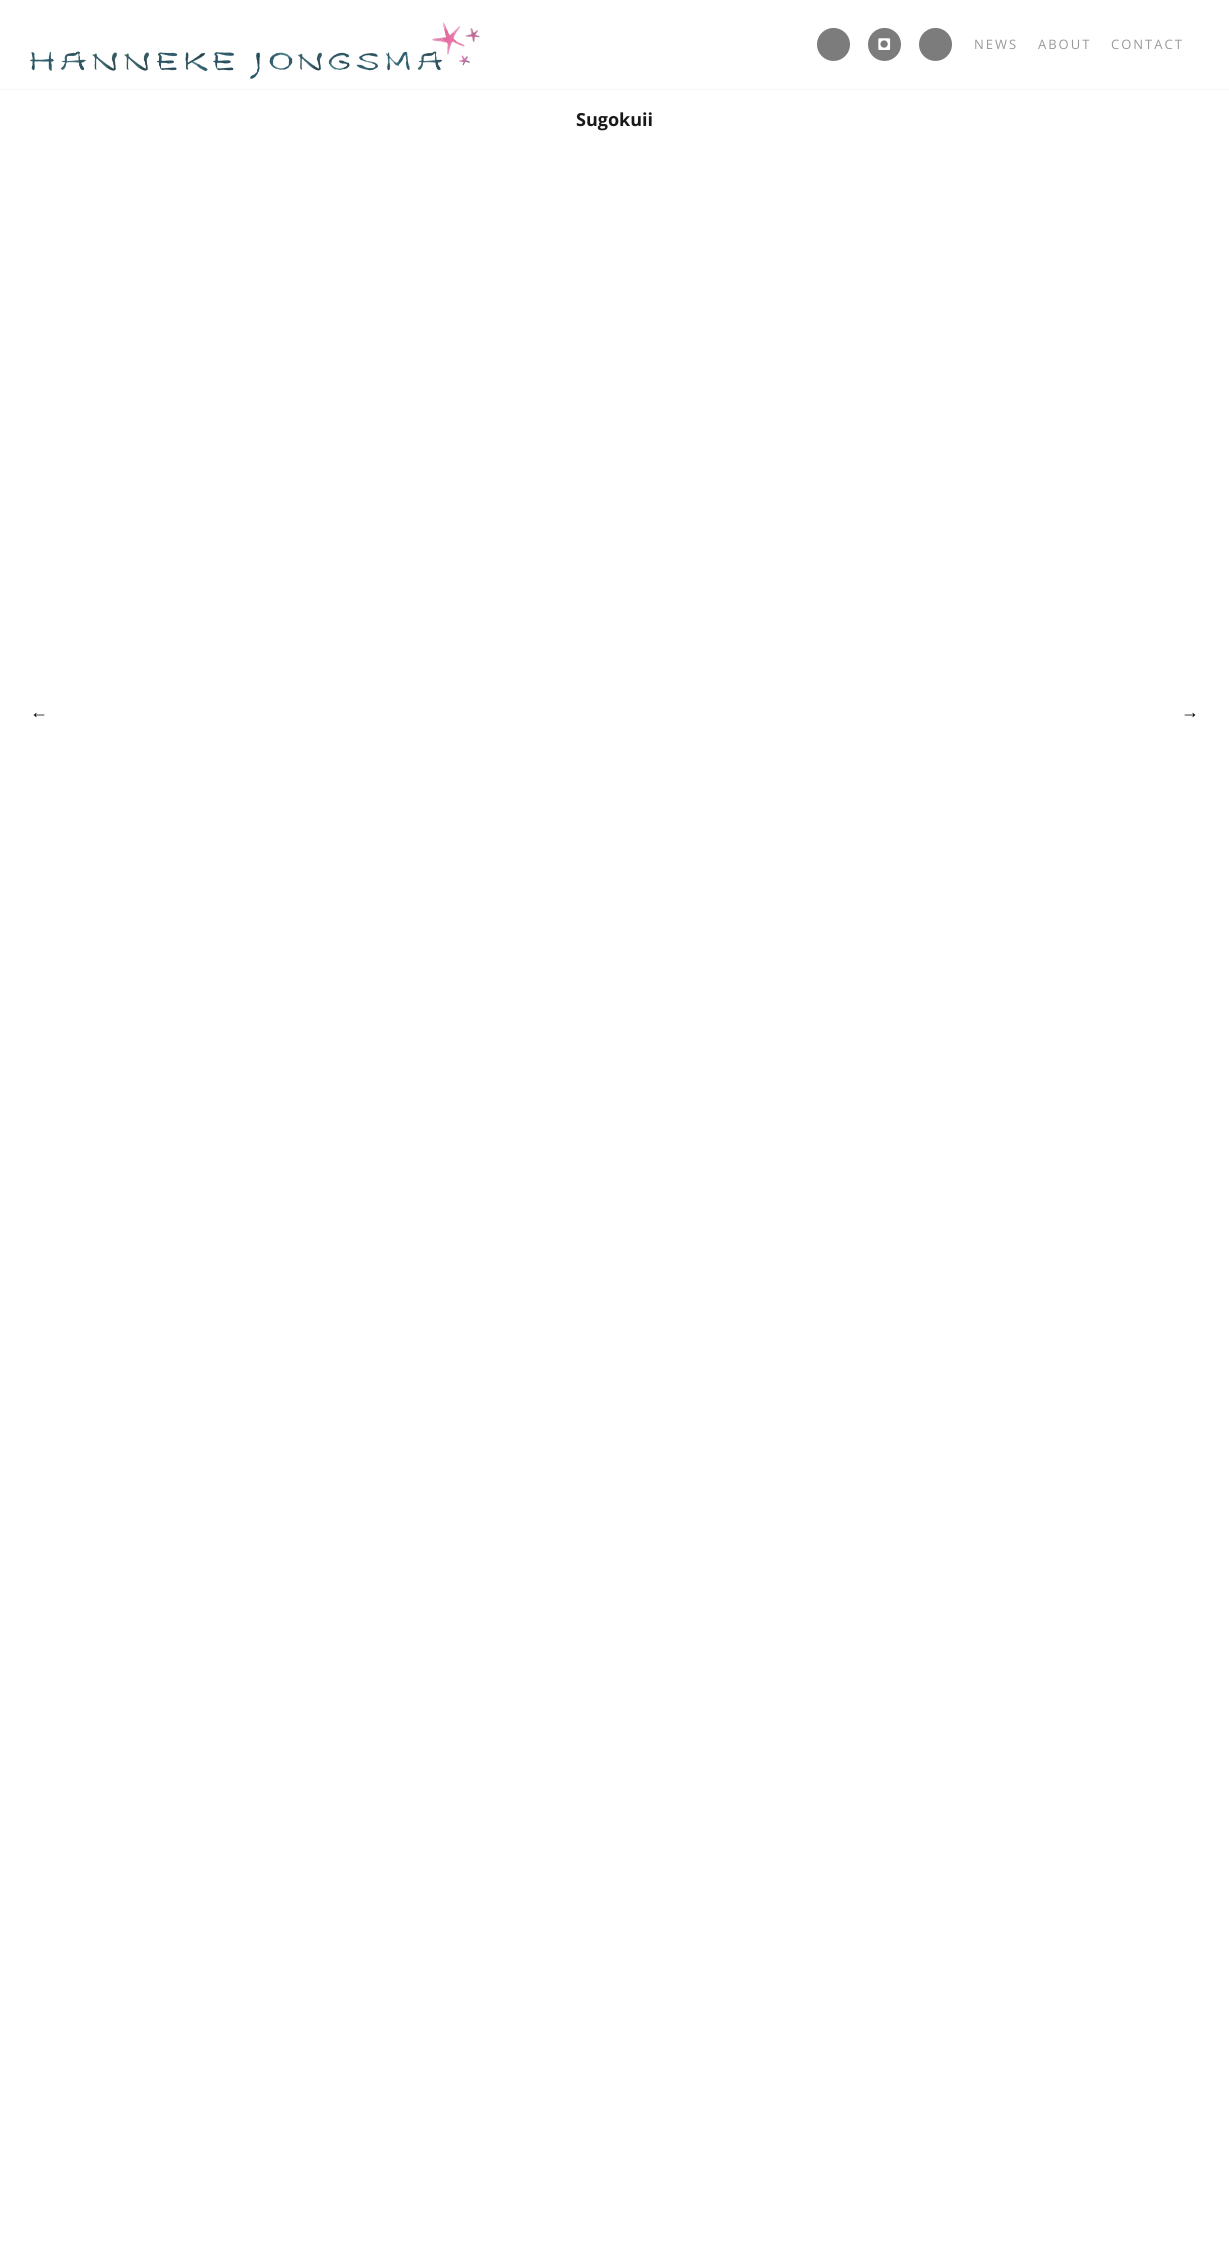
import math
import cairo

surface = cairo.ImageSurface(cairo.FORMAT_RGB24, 1229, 2243)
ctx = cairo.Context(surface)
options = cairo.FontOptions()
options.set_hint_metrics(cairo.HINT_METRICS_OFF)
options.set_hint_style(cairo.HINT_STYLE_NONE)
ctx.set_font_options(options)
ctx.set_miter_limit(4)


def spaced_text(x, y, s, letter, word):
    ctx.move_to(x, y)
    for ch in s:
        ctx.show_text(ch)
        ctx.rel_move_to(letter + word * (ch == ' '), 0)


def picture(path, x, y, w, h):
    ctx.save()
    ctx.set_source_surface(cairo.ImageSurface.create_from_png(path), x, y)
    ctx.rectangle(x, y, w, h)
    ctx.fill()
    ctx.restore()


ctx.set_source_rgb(1, 1, 1)
ctx.paint()
picture("img1.png", 30, 22, 450, 57)
picture("img2.png", 817, 27, 33, 34)
picture("img3.png", 868, 27, 33, 34)
picture("img4.png", 919, 27, 33, 34)
ctx.select_font_face("Open Sans")
ctx.set_font_size(13)
ctx.set_source_rgb(0.6, 0.6, 0.6)
spaced_text(974, 49, "NEWS", 2, 0)
spaced_text(1038, 49, "ABOUT", 2, 0)
spaced_text(1111, 49, "CONTACT", 2, 0)
ctx.set_source_rgb(0.961, 0.961, 0.961)
ctx.rectangle(0, 89, 1229, 1)
ctx.fill()
ctx.select_font_face("Open Sans", cairo.FONT_SLANT_NORMAL, cairo.FONT_WEIGHT_BOLD)
ctx.set_font_size(18)
ctx.set_source_rgb(0.098, 0.098, 0.098)
ctx.move_to(576, 126)
ctx.show_text("Sugokuii")
ctx.select_font_face("Liberation Sans")
ctx.set_source_rgb(0, 0, 0)
ctx.move_to(30, 718)
ctx.show_text("←")
ctx.move_to(1181, 718)
ctx.show_text("→")
surface.write_to_png("page.png")
